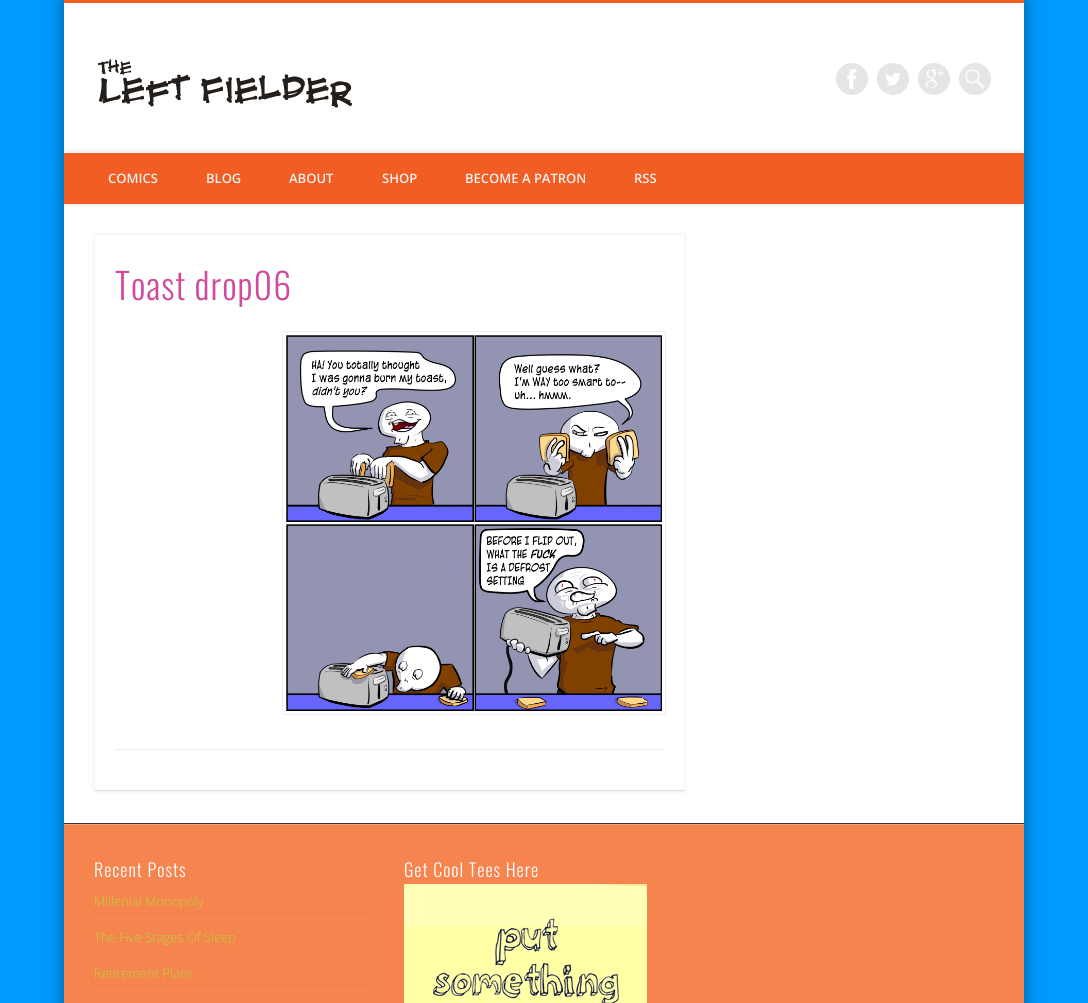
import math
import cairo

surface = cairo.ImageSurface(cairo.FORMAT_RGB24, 1088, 1003)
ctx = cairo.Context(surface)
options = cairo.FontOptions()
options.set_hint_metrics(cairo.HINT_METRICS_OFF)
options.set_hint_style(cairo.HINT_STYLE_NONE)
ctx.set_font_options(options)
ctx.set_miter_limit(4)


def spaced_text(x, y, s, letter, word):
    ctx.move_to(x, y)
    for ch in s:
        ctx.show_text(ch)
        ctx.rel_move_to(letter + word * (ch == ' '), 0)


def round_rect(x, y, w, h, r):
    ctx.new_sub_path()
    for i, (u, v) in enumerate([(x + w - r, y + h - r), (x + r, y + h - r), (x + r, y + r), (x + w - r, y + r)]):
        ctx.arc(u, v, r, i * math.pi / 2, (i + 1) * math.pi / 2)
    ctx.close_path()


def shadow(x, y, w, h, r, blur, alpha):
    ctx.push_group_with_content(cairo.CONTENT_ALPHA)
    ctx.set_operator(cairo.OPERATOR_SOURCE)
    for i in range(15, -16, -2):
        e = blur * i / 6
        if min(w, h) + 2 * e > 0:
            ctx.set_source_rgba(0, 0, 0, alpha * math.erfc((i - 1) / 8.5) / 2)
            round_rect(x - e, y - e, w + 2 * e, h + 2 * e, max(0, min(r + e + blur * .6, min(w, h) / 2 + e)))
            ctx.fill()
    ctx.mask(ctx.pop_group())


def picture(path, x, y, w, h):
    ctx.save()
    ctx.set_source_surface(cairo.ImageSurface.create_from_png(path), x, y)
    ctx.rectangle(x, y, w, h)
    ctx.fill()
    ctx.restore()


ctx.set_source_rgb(0, 0.6, 1)
ctx.paint()
ctx.set_source_rgb(0, 0, 0)
shadow(64, 0, 960, 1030, 0, 9, 0.4)
ctx.set_source_rgb(1, 1, 1)
ctx.rectangle(64, 3, 960, 820)
ctx.fill()
ctx.set_source_rgb(0.945, 0.365, 0.133)
ctx.rectangle(64, 0, 960, 3)
ctx.fill()
picture("img1.png", 98, 59, 255, 49)
picture("img2.png", 836, 63, 32, 32)
picture("img3.png", 877, 63, 32, 32)
picture("img4.png", 918, 63, 32, 32)
ctx.set_source_rgb(0.902, 0.902, 0.902)
ctx.arc(975, 79, 16, 0, 2 * math.pi)
ctx.fill()
picture("img5.png", 965, 69, 20, 20)
ctx.save()
ctx.rectangle(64, 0, 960, 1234)
ctx.clip()
ctx.set_source_rgb(0, 0, 0)
shadow(64, 153, 960, 51, 0, 3.5, 0.1)
ctx.restore()
ctx.set_source_rgb(0.945, 0.365, 0.133)
ctx.rectangle(64, 153, 960, 51)
ctx.fill()
ctx.select_font_face("Open Sans SemiBold")
ctx.set_font_size(13)
ctx.set_source_rgb(0.941, 0.941, 0.941)
ctx.move_to(108, 183)
ctx.show_text("COMICS")
ctx.move_to(206, 183)
ctx.show_text("BLOG")
ctx.move_to(289, 183)
ctx.show_text("ABOUT")
ctx.move_to(382, 183)
ctx.show_text("SHOP")
ctx.move_to(465, 183)
ctx.show_text("BECOME A PATRON")
ctx.move_to(634, 183)
ctx.show_text("RSS")
ctx.save()
ctx.set_fill_rule(cairo.FILL_RULE_EVEN_ODD)
ctx.new_path()
ctx.move_to(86, 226)
ctx.line_to(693, 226)
ctx.line_to(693, 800)
ctx.line_to(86, 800)
ctx.close_path()
ctx.move_to(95, 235)
ctx.line_to(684, 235)
ctx.line_to(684, 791)
ctx.line_to(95, 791)
ctx.close_path()
ctx.clip()
ctx.set_source_rgb(0, 0, 0)
shadow(95, 235, 589, 556, 0, 2.5, 0.1)
ctx.restore()
ctx.set_source_rgb(0.871, 0.871, 0.871)
ctx.rectangle(95, 790, 589, 1)
ctx.fill()
ctx.select_font_face("Oswald Light")
ctx.set_font_size(36)
ctx.set_source_rgb(0.816, 0.286, 0.604)
spaced_text(115, 300, "Toast drop06", 1, 0)
ctx.rectangle(282.5, 331.5, 383, 383)
ctx.set_source_rgb(0.933, 0.933, 0.933)
ctx.set_line_width(1)
ctx.stroke()
picture("img6.png", 286, 335, 376, 376)
ctx.rectangle(115, 749, 549, 1)
ctx.fill()
ctx.set_source_rgb(0.212, 0.212, 0.212)
ctx.rectangle(64, 823, 960, 1)
ctx.fill()
ctx.set_source_rgb(0.961, 0.518, 0.31)
ctx.rectangle(64, 825, 960, 178)
ctx.fill()
ctx.set_source_rgb(0.969, 0.631, 0.471)
ctx.rectangle(64, 824, 960, 1)
ctx.fill()
ctx.set_font_size(18)
ctx.set_source_rgb(1, 1, 1)
spaced_text(94, 877, "Recent Posts", 1, 0)
ctx.set_source_rgb(0.965, 0.541, 0.345)
ctx.rectangle(94, 919, 280, 1)
ctx.fill()
ctx.select_font_face("Open Sans Light")
ctx.set_font_size(13)
ctx.set_source_rgb(0.725, 0.835, 0.196)
ctx.move_to(94, 906)
ctx.show_text("Millenial Monopoly")
ctx.set_source_rgb(0.965, 0.541, 0.345)
ctx.rectangle(94, 955, 280, 1)
ctx.fill()
ctx.set_source_rgb(0.725, 0.835, 0.196)
ctx.move_to(94, 942)
ctx.show_text("The Five Stages Of Sleep")
ctx.set_source_rgb(0.965, 0.541, 0.345)
ctx.rectangle(94, 991, 280, 1)
ctx.fill()
ctx.set_source_rgb(0.725, 0.835, 0.196)
ctx.move_to(94, 978)
ctx.show_text("Retirement Plans")
ctx.select_font_face("Oswald Light")
ctx.set_font_size(18)
ctx.set_source_rgb(1, 1, 1)
spaced_text(404, 877, "Get Cool Tees Here", 1, 0)
picture("img7.png", 404, 884, 243, 119)
surface.write_to_png("page.png")
